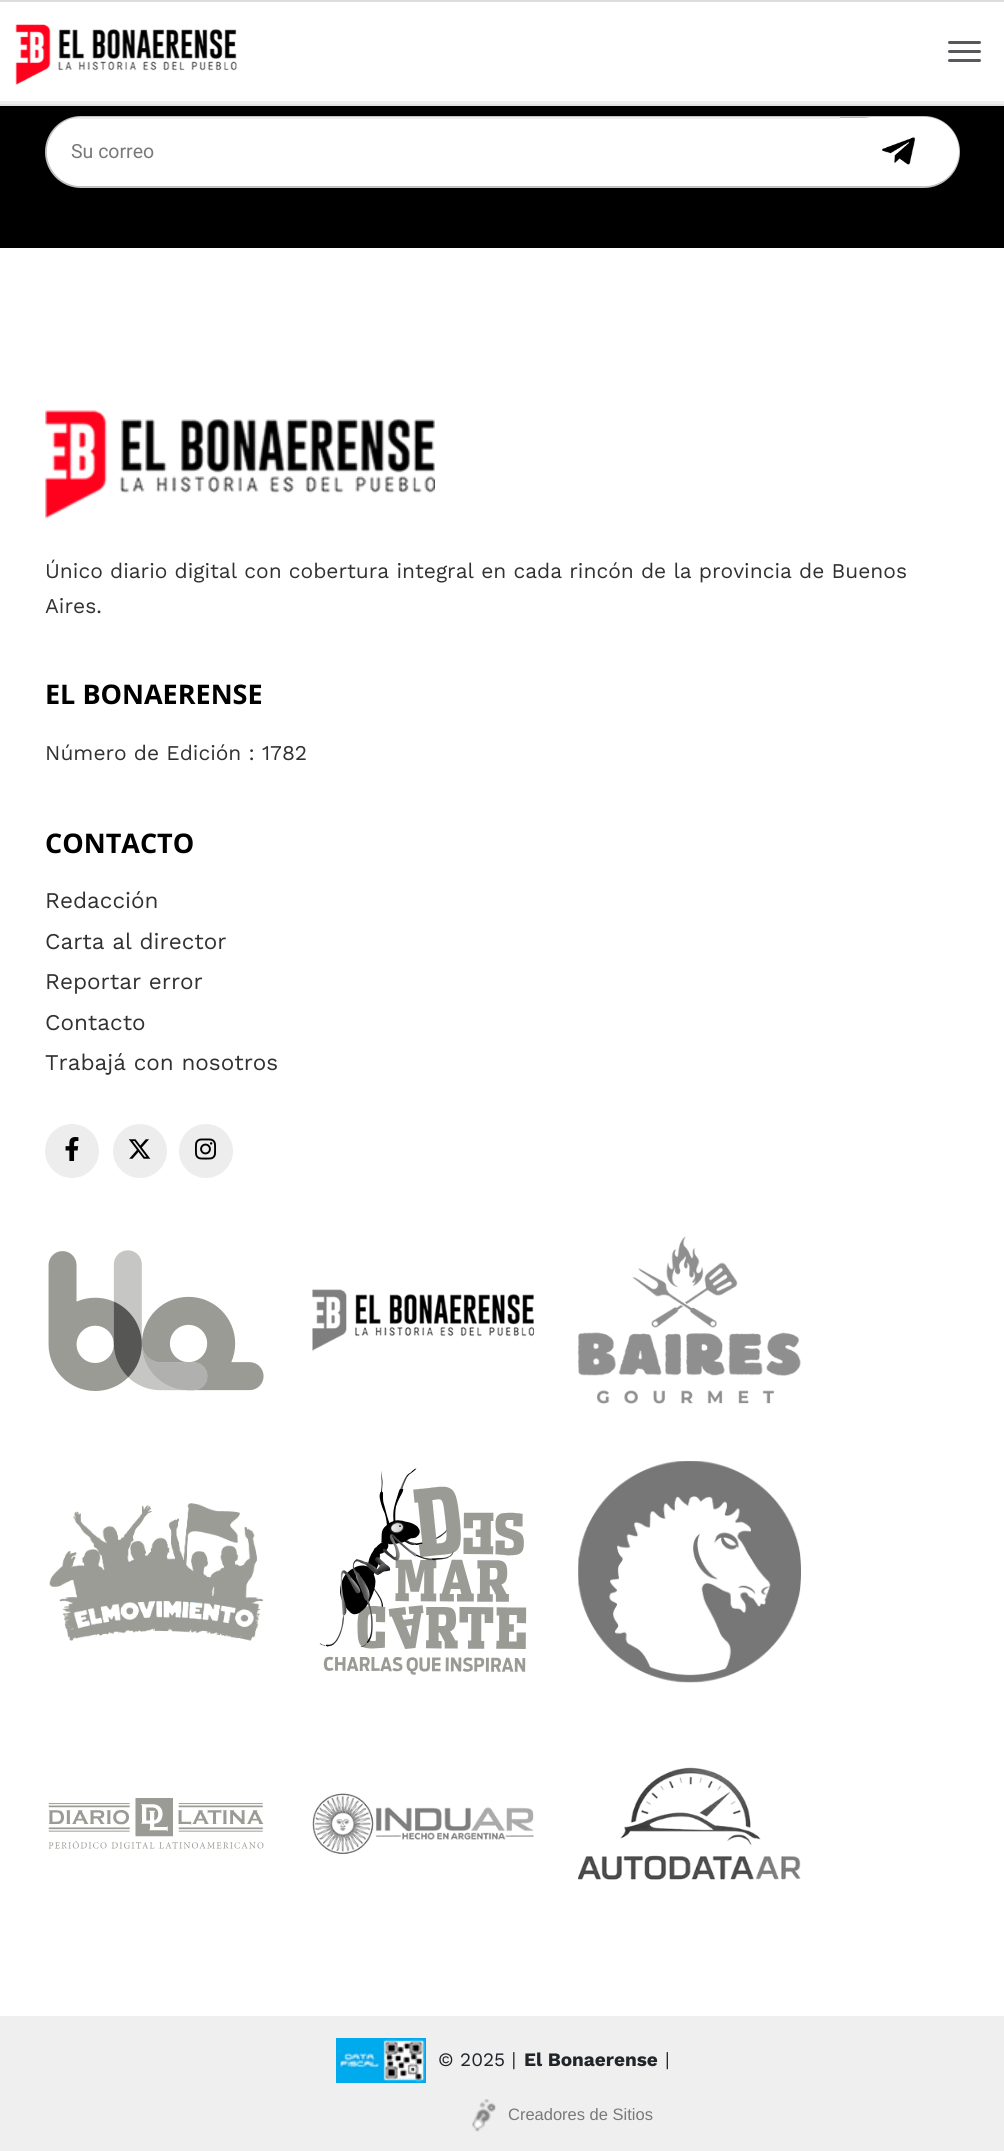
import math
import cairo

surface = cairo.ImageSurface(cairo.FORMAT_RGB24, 1004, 2151)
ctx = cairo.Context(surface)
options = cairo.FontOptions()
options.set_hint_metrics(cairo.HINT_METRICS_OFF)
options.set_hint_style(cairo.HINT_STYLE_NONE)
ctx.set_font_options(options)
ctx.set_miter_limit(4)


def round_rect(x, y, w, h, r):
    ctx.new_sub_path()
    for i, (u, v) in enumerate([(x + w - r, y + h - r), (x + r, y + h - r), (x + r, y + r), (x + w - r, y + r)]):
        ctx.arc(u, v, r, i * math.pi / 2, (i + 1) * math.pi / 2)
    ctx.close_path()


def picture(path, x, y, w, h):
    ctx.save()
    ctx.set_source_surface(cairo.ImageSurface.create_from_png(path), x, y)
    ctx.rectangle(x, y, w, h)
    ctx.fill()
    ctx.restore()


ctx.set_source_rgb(1, 1, 1)
ctx.paint()
ctx.set_source_rgb(0.89, 0.89, 0.89)
ctx.rectangle(0, 104, 1004, 2)
ctx.fill()
ctx.set_source_rgb(0.863, 0.863, 0.863)
ctx.rectangle(0, 0, 1004, 2)
ctx.fill()
picture("img1.png", 15, 24, 222, 61)
ctx.set_source_rgb(0.345, 0.345, 0.361)
round_rect(948, 41, 33, 3, 1.5)
ctx.fill()
round_rect(948, 50, 33, 3, 1.5)
ctx.fill()
round_rect(948, 59, 33, 3, 1.5)
ctx.fill()
ctx.set_source_rgb(0.933, 0.933, 0.933)
ctx.rectangle(0, 101, 1004, 3)
ctx.fill()
ctx.set_source_rgb(0, 0, 0)
ctx.rectangle(0, 106, 1004, 142)
ctx.fill()
ctx.set_source_rgb(1, 1, 1)
round_rect(46, 117, 913, 70, 35)
ctx.fill_preserve()
ctx.set_source_rgb(0.757, 0.757, 0.757)
ctx.stroke()
ctx.set_source_rgb(1, 1, 1)
round_rect(840, 118, 118, 67, 33.5)
ctx.fill_preserve()
ctx.stroke()
ctx.new_path()
ctx.move_to(81.5, 117)
ctx.line_to(840, 117)
ctx.line_to(840, 186)
ctx.line_to(81.5, 186)
ctx.curve_to(62.5, 186, 47, 170.5, 47, 151.5)
ctx.curve_to(47, 132.5, 62.5, 117, 81.5, 117)
ctx.close_path()
ctx.fill()
ctx.save()
round_rect(47, 117, 912, 69, 34.5)
ctx.clip()
ctx.set_source_rgba(0, 0, 0, 0.07)
ctx.rectangle(71, 117, 769, 2)
ctx.fill()
ctx.restore()
ctx.select_font_face("Roboto")
ctx.set_font_size(19.5)
ctx.set_source_rgb(0.475, 0.475, 0.475)
ctx.move_to(71, 158)
ctx.show_text("Su correo")
picture("img2.png", 882, 137, 33, 28)
picture("img3.png", 45, 410, 390, 109)
ctx.select_font_face("Work Sans")
ctx.set_font_size(21)
ctx.set_source_rgb(0.192, 0.192, 0.192)
ctx.move_to(45, 578)
ctx.show_text("Único diario digital con cobertura integral en cada rincón de la provincia de Buenos")
ctx.move_to(45, 613)
ctx.show_text("Aires.")
ctx.select_font_face("Open Sans", cairo.FONT_SLANT_NORMAL, cairo.FONT_WEIGHT_BOLD)
ctx.set_font_size(27)
ctx.set_source_rgb(0, 0, 0)
ctx.move_to(45, 704)
ctx.show_text("EL BONAERENSE")
ctx.select_font_face("Work Sans")
ctx.set_font_size(21)
ctx.set_source_rgb(0.192, 0.192, 0.192)
ctx.move_to(45, 760)
ctx.show_text("Número de Edición : 1782")
ctx.select_font_face("Open Sans", cairo.FONT_SLANT_NORMAL, cairo.FONT_WEIGHT_BOLD)
ctx.set_font_size(27)
ctx.set_source_rgb(0, 0, 0)
ctx.move_to(45, 853)
ctx.show_text("CONTACTO")
ctx.select_font_face("Work Sans")
ctx.set_font_size(22.5)
ctx.set_source_rgb(0.192, 0.192, 0.192)
ctx.move_to(45, 908)
ctx.show_text("Redacción")
ctx.move_to(45, 949)
ctx.show_text("Carta al director")
ctx.move_to(45, 989)
ctx.show_text("Reportar error")
ctx.move_to(45, 1030)
ctx.show_text("Contacto")
ctx.move_to(45, 1070)
ctx.show_text("Trabajá con nosotros")
ctx.set_source_rgb(0.929, 0.929, 0.929)
ctx.new_path()
ctx.arc(72, 1151, 27, 0, 2 * math.pi)
ctx.fill()
picture("img4.png", 65, 1137, 14, 24)
ctx.arc(140, 1151, 27, 0, 2 * math.pi)
ctx.fill()
picture("img5.png", 128, 1139, 23, 20)
ctx.arc(206, 1151, 27, 0, 2 * math.pi)
ctx.fill()
picture("img6.png", 195, 1138, 21, 22)
picture("img7.png", 48, 1250, 216, 141)
picture("img8.png", 312, 1289, 222, 63)
picture("img9.png", 578, 1236, 223, 168)
picture("img10.png", 49, 1503, 214, 138)
picture("img11.png", 319, 1468, 208, 207)
picture("img12.png", 578, 1461, 223, 222)
picture("img13.png", 48, 1798, 216, 51)
picture("img14.png", 312, 1793, 222, 61)
picture("img15.png", 578, 1767, 223, 113)
ctx.set_source_rgb(0.937, 0.937, 0.937)
ctx.rectangle(0, 2016, 1004, 135)
ctx.fill()
picture("img16.png", 336, 2038, 90, 45)
ctx.set_font_size(19)
ctx.set_source_rgb(0.129, 0.145, 0.161)
ctx.move_to(438, 2066)
ctx.show_text("© 2025 |")
ctx.select_font_face("Work Sans", cairo.FONT_SLANT_NORMAL, cairo.FONT_WEIGHT_BOLD)
ctx.move_to(524, 2066)
ctx.show_text("El Bonaerense")
ctx.select_font_face("Work Sans")
ctx.move_to(665, 2066)
ctx.show_text("|")
picture("img17.png", 472, 2099, 24, 33)
ctx.select_font_face("Liberation Sans")
ctx.set_font_size(16.5)
ctx.set_source_rgb(0.475, 0.475, 0.475)
ctx.move_to(508, 2120)
ctx.show_text("Creadores de Sitios")
surface.write_to_png("page.png")
